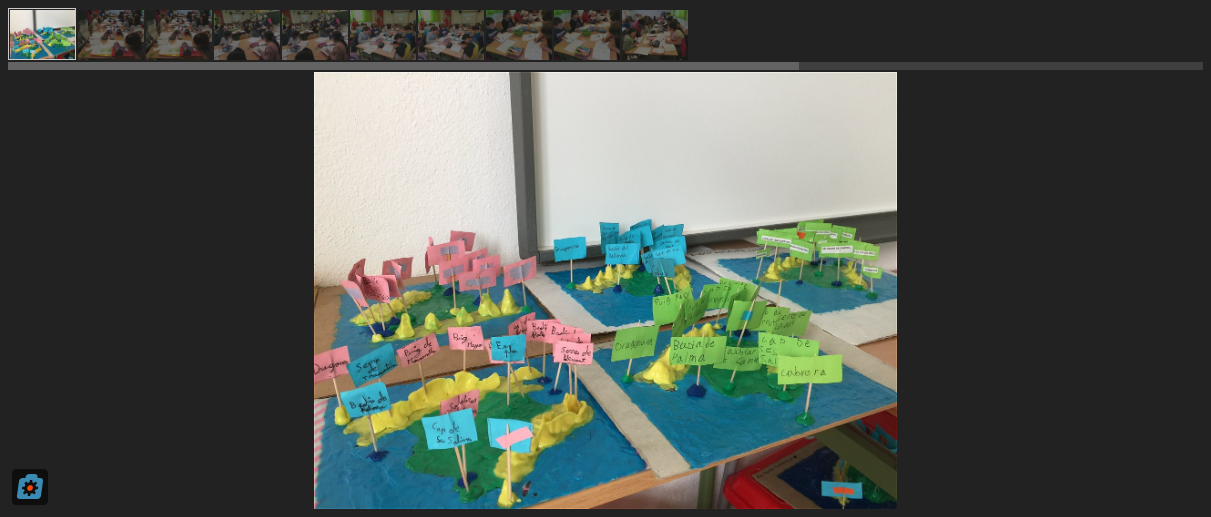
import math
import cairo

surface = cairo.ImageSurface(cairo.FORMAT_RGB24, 1211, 517)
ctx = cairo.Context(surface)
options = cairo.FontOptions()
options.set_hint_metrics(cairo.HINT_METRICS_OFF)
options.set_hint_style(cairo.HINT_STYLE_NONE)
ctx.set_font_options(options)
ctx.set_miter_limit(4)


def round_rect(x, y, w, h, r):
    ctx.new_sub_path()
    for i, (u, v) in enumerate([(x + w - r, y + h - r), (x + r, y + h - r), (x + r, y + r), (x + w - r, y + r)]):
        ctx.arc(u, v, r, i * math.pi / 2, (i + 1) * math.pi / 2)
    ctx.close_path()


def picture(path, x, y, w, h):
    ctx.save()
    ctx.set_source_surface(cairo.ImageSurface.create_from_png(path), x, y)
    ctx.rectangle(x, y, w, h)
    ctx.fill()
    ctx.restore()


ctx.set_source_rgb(0.133, 0.133, 0.133)
ctx.paint()
ctx.rectangle(8.5, 8.5, 67, 51)
ctx.set_source_rgb(0.8, 0.8, 0.8)
ctx.set_line_width(1)
ctx.stroke()
picture("img1.png", 10, 10, 65, 49)
picture("img2.png", 78, 10, 66, 50)
picture("img2.png", 146, 10, 66, 50)
picture("img3.png", 214, 10, 66, 50)
picture("img3.png", 282, 10, 66, 50)
picture("img4.png", 350, 10, 66, 50)
picture("img5.png", 418, 10, 66, 50)
picture("img6.png", 486, 10, 66, 50)
picture("img6.png", 554, 10, 66, 50)
picture("img7.png", 622, 10, 66, 50)
ctx.set_source_rgb(0.247, 0.247, 0.247)
ctx.rectangle(799, 62, 404, 8)
ctx.fill()
ctx.set_source_rgb(0.388, 0.388, 0.388)
ctx.rectangle(8, 62, 791, 8)
ctx.fill()
ctx.set_source_rgb(0.055, 0.055, 0.055)
round_rect(12, 469, 36, 36, 4)
ctx.fill()
picture("img8.png", 16, 474, 27, 25)
picture("img9.png", 314, 72, 583, 437)
surface.write_to_png("page.png")
